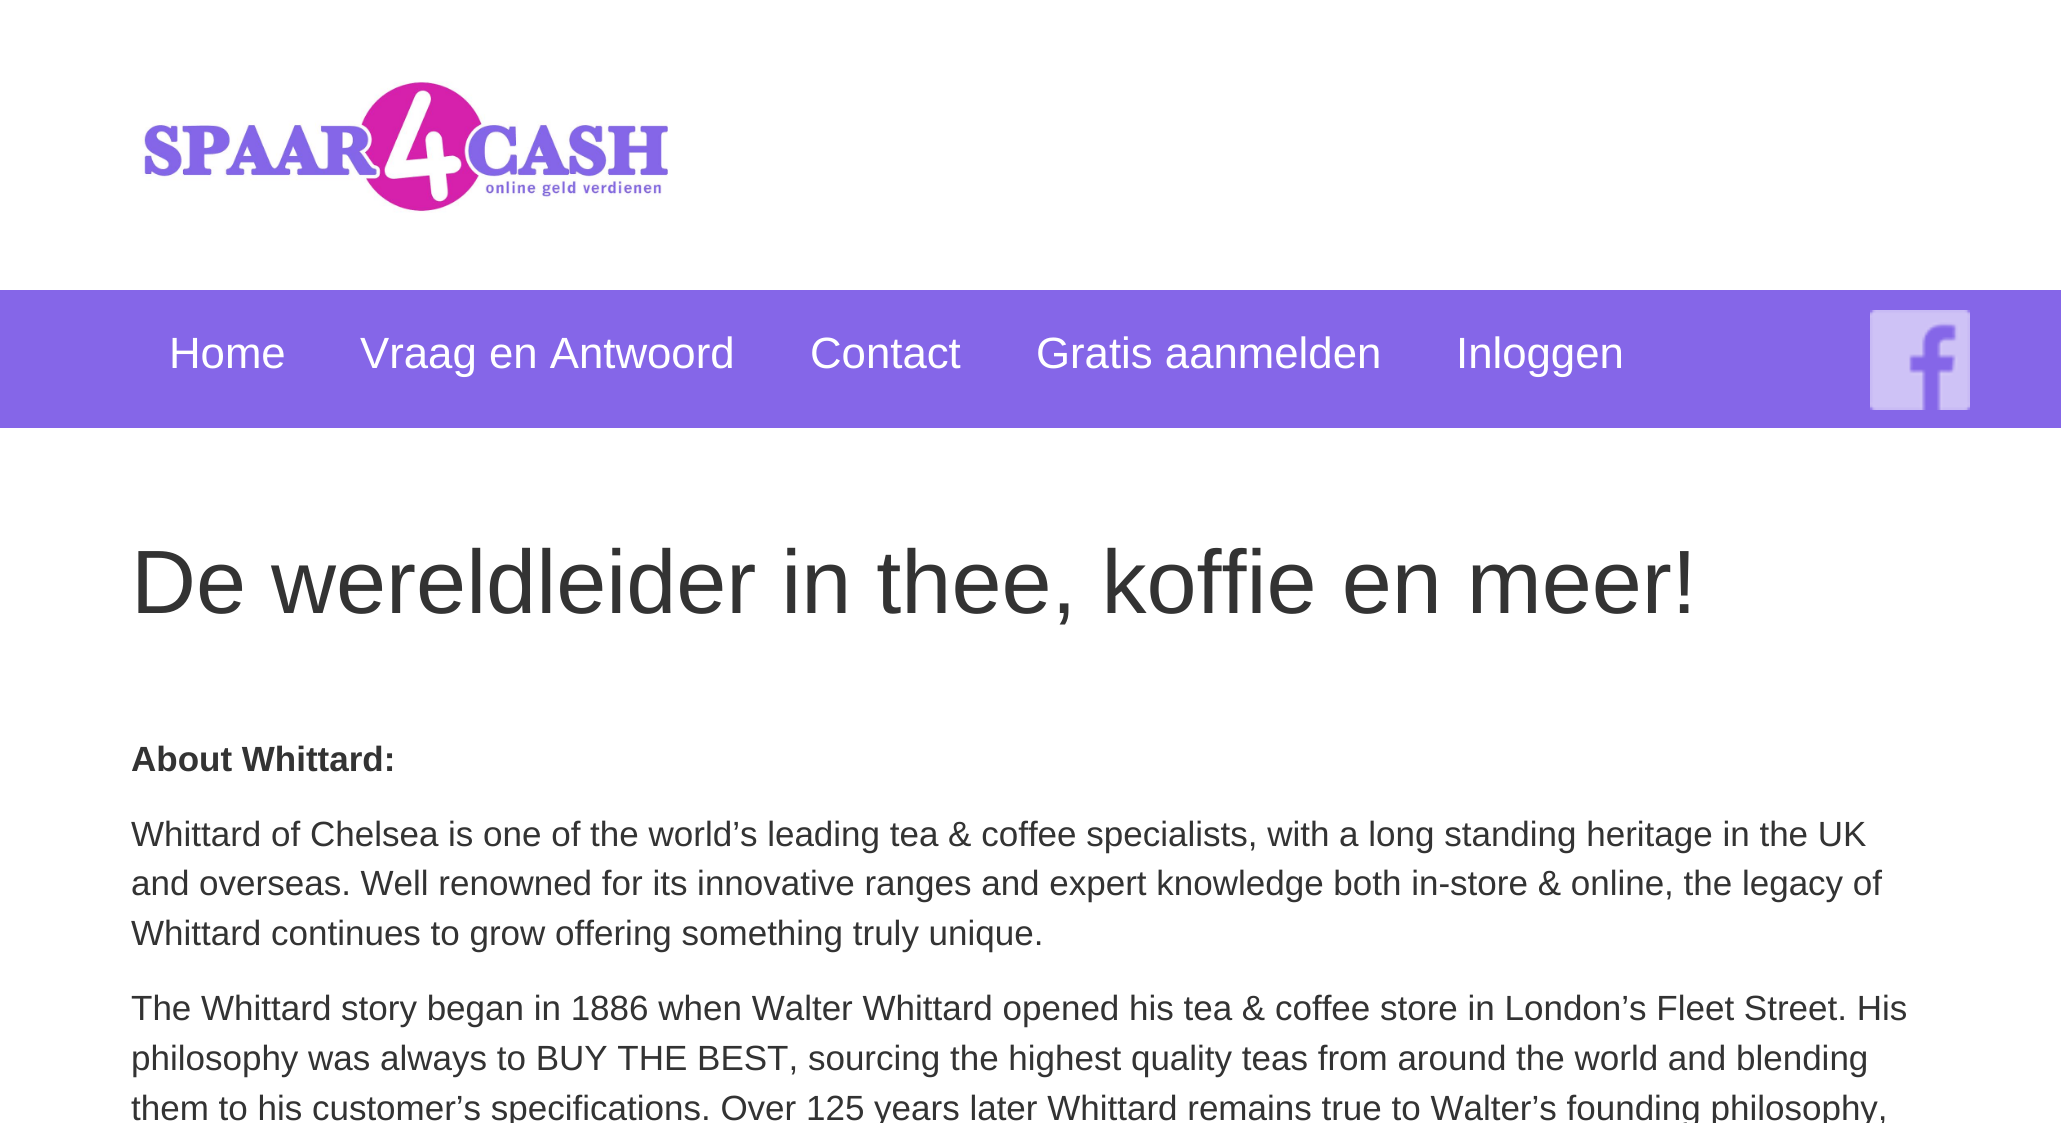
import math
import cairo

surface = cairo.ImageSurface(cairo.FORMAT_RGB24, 2061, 1123)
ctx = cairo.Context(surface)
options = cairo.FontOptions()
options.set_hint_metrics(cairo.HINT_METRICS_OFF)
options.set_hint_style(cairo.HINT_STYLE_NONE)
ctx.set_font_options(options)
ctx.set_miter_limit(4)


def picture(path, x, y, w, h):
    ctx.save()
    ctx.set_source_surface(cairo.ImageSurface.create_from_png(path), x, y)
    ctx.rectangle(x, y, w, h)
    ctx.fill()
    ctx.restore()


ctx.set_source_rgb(1, 1, 1)
ctx.paint()
picture("img1.png", 140, 81, 528, 132)
ctx.set_source_rgb(0.522, 0.4, 0.91)
ctx.rectangle(0, 290, 2061, 138)
ctx.fill()
ctx.select_font_face("Liberation Sans")
ctx.set_font_size(43.75)
ctx.set_source_rgb(1, 1, 1)
ctx.move_to(169, 368)
ctx.show_text("Home")
ctx.move_to(360, 368)
ctx.show_text("Vraag en Antwoord")
ctx.move_to(810, 368)
ctx.show_text("Contact")
ctx.move_to(1036, 368)
ctx.show_text("Gratis aanmelden")
ctx.move_to(1456, 368)
ctx.show_text("Inloggen")
picture("img2.png", 1870, 310, 100, 100)
ctx.set_font_size(90)
ctx.set_source_rgb(0.2, 0.2, 0.2)
ctx.move_to(131, 613)
ctx.show_text("De wereldleider in thee, koffie en meer!")
ctx.select_font_face("Liberation Sans", cairo.FONT_SLANT_NORMAL, cairo.FONT_WEIGHT_BOLD)
ctx.set_font_size(35)
ctx.move_to(131, 771)
ctx.show_text("About Whittard:")
ctx.select_font_face("Liberation Sans")
ctx.move_to(131, 846)
ctx.show_text("Whittard of Chelsea is one of the world’s leading tea & coffee specialists, with a long standing heritage in the UK")
ctx.move_to(131, 895)
ctx.show_text("and overseas. Well renowned for its innovative ranges and expert knowledge both in-store & online, the legacy of")
ctx.move_to(131, 945)
ctx.show_text("Whittard continues to grow offering something truly unique.")
ctx.move_to(131, 1020)
ctx.show_text("The Whittard story began in 1886 when Walter Whittard opened his tea & coffee store in London’s Fleet Street. His")
ctx.move_to(131, 1070)
ctx.show_text("philosophy was always to BUY THE BEST, sourcing the highest quality teas from around the world and blending")
ctx.move_to(131, 1120)
ctx.show_text("them to his customer’s specifications. Over 125 years later Whittard remains true to Walter’s founding philosophy,")
surface.write_to_png("page.png")
